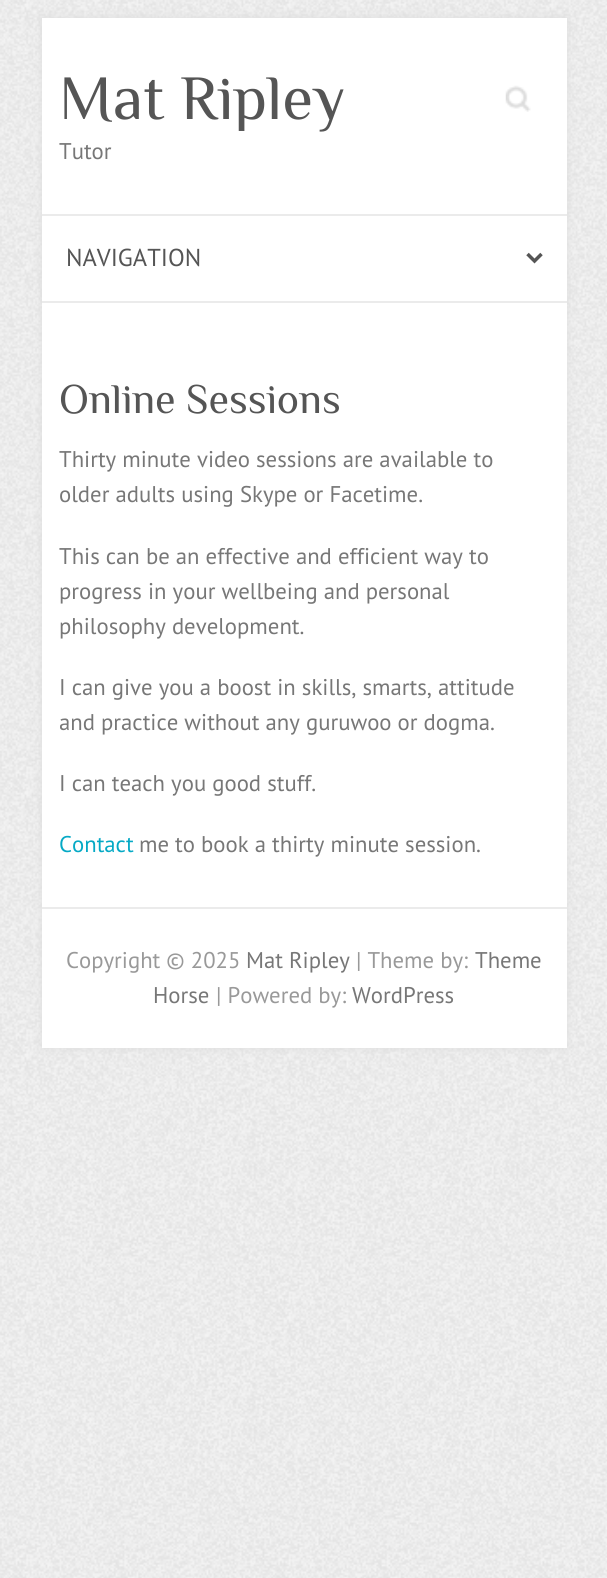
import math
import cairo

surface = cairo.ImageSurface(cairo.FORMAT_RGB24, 607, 1578)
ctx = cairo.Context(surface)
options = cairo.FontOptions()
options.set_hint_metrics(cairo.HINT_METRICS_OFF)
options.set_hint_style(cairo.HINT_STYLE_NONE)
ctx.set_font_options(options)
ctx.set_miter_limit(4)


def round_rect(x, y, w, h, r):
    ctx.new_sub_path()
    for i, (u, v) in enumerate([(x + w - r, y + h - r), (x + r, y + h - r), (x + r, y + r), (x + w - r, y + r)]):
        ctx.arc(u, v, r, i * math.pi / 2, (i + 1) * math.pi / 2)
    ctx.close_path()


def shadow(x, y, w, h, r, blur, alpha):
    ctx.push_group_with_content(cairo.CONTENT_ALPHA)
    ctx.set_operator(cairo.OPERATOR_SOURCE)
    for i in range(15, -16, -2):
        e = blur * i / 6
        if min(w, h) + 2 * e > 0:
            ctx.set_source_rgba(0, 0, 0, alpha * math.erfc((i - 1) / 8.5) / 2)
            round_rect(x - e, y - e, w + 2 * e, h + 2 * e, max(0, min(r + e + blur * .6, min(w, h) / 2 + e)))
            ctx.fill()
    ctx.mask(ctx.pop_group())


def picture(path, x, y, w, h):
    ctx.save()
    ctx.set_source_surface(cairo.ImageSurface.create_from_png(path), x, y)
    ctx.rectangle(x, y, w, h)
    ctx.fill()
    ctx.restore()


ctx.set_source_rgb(1, 1, 1)
ctx.paint()
picture("img1.png", 0, 0, 607, 1578)
ctx.set_source_rgb(0.867, 0.867, 0.867)
shadow(42, 18, 525, 1030, 0, 4.5, 1)
ctx.set_source_rgb(1, 1, 1)
ctx.rectangle(42, 18, 525, 1030)
ctx.fill()
ctx.select_font_face("Philosopher")
ctx.set_font_size(63)
ctx.set_source_rgb(0.333, 0.333, 0.333)
ctx.move_to(59, 119)
ctx.show_text("Mat Ripley")
ctx.select_font_face("PT Sans")
ctx.set_font_size(22.75)
ctx.set_source_rgb(0.467, 0.467, 0.467)
ctx.move_to(59, 159)
ctx.show_text("Tutor")
picture("img2.png", 505, 85, 26, 27)
ctx.set_source_rgb(0.918, 0.918, 0.918)
ctx.rectangle(42, 214, 525, 2)
ctx.fill()
ctx.rectangle(42, 301, 525, 2)
ctx.fill()
ctx.new_path()
ctx.move_to(527.5, 254)
ctx.line_to(534.5, 261)
ctx.line_to(541.5, 254)
ctx.set_source_rgb(0.333, 0.333, 0.333)
ctx.set_line_width(3.5)
ctx.stroke()
ctx.set_font_size(24.5)
ctx.move_to(66, 266)
ctx.show_text("NAVIGATION")
ctx.select_font_face("Philosopher")
ctx.set_font_size(42)
ctx.move_to(59, 413)
ctx.show_text("Online Sessions")
ctx.select_font_face("PT Sans")
ctx.set_font_size(22.75)
ctx.set_source_rgb(0.467, 0.467, 0.467)
ctx.move_to(59, 467)
ctx.show_text("Thirty minute video sessions are available to")
ctx.save()
ctx.rectangle(60, 443, 490, 446)
ctx.clip()
ctx.move_to(59, 502)
ctx.show_text("older adults using Skype or Facetime.")
ctx.restore()
ctx.move_to(59, 564)
ctx.show_text("This can be an effective and efficient way to")
ctx.move_to(59, 599)
ctx.show_text("progress in your wellbeing and personal")
ctx.move_to(59, 634)
ctx.show_text("philosophy development.")
ctx.move_to(59, 695)
ctx.show_text("I can give you a boost in skills, smarts, attitude")
ctx.save()
ctx.rectangle(60, 443, 490, 446)
ctx.clip()
ctx.move_to(59, 730)
ctx.show_text("and practice without any guruwoo or dogma.")
ctx.restore()
ctx.move_to(59, 791)
ctx.show_text("I can teach you good stuff.")
ctx.set_source_rgb(0.02, 0.663, 0.773)
ctx.move_to(59, 852)
ctx.show_text("Contact")
ctx.set_source_rgb(0.467, 0.467, 0.467)
ctx.move_to(139, 852)
ctx.show_text("me to book a thirty minute session.")
ctx.set_source_rgb(0.918, 0.918, 0.918)
ctx.rectangle(42, 907, 525, 2)
ctx.fill()
ctx.set_source_rgb(0.6, 0.6, 0.6)
ctx.move_to(66, 968)
ctx.show_text("Copyright © 2025")
ctx.set_source_rgb(0.467, 0.467, 0.467)
ctx.move_to(246, 968)
ctx.show_text("Mat Ripley")
ctx.set_source_rgb(0.6, 0.6, 0.6)
ctx.move_to(356, 968)
ctx.show_text("| Theme by:")
ctx.set_source_rgb(0.467, 0.467, 0.467)
ctx.move_to(475, 968)
ctx.show_text("Theme")
ctx.move_to(153, 1003)
ctx.show_text("Horse")
ctx.set_source_rgb(0.6, 0.6, 0.6)
ctx.move_to(216, 1003)
ctx.show_text("| Powered by:")
ctx.set_source_rgb(0.467, 0.467, 0.467)
ctx.move_to(352, 1003)
ctx.show_text("WordPress")
surface.write_to_png("page.png")
